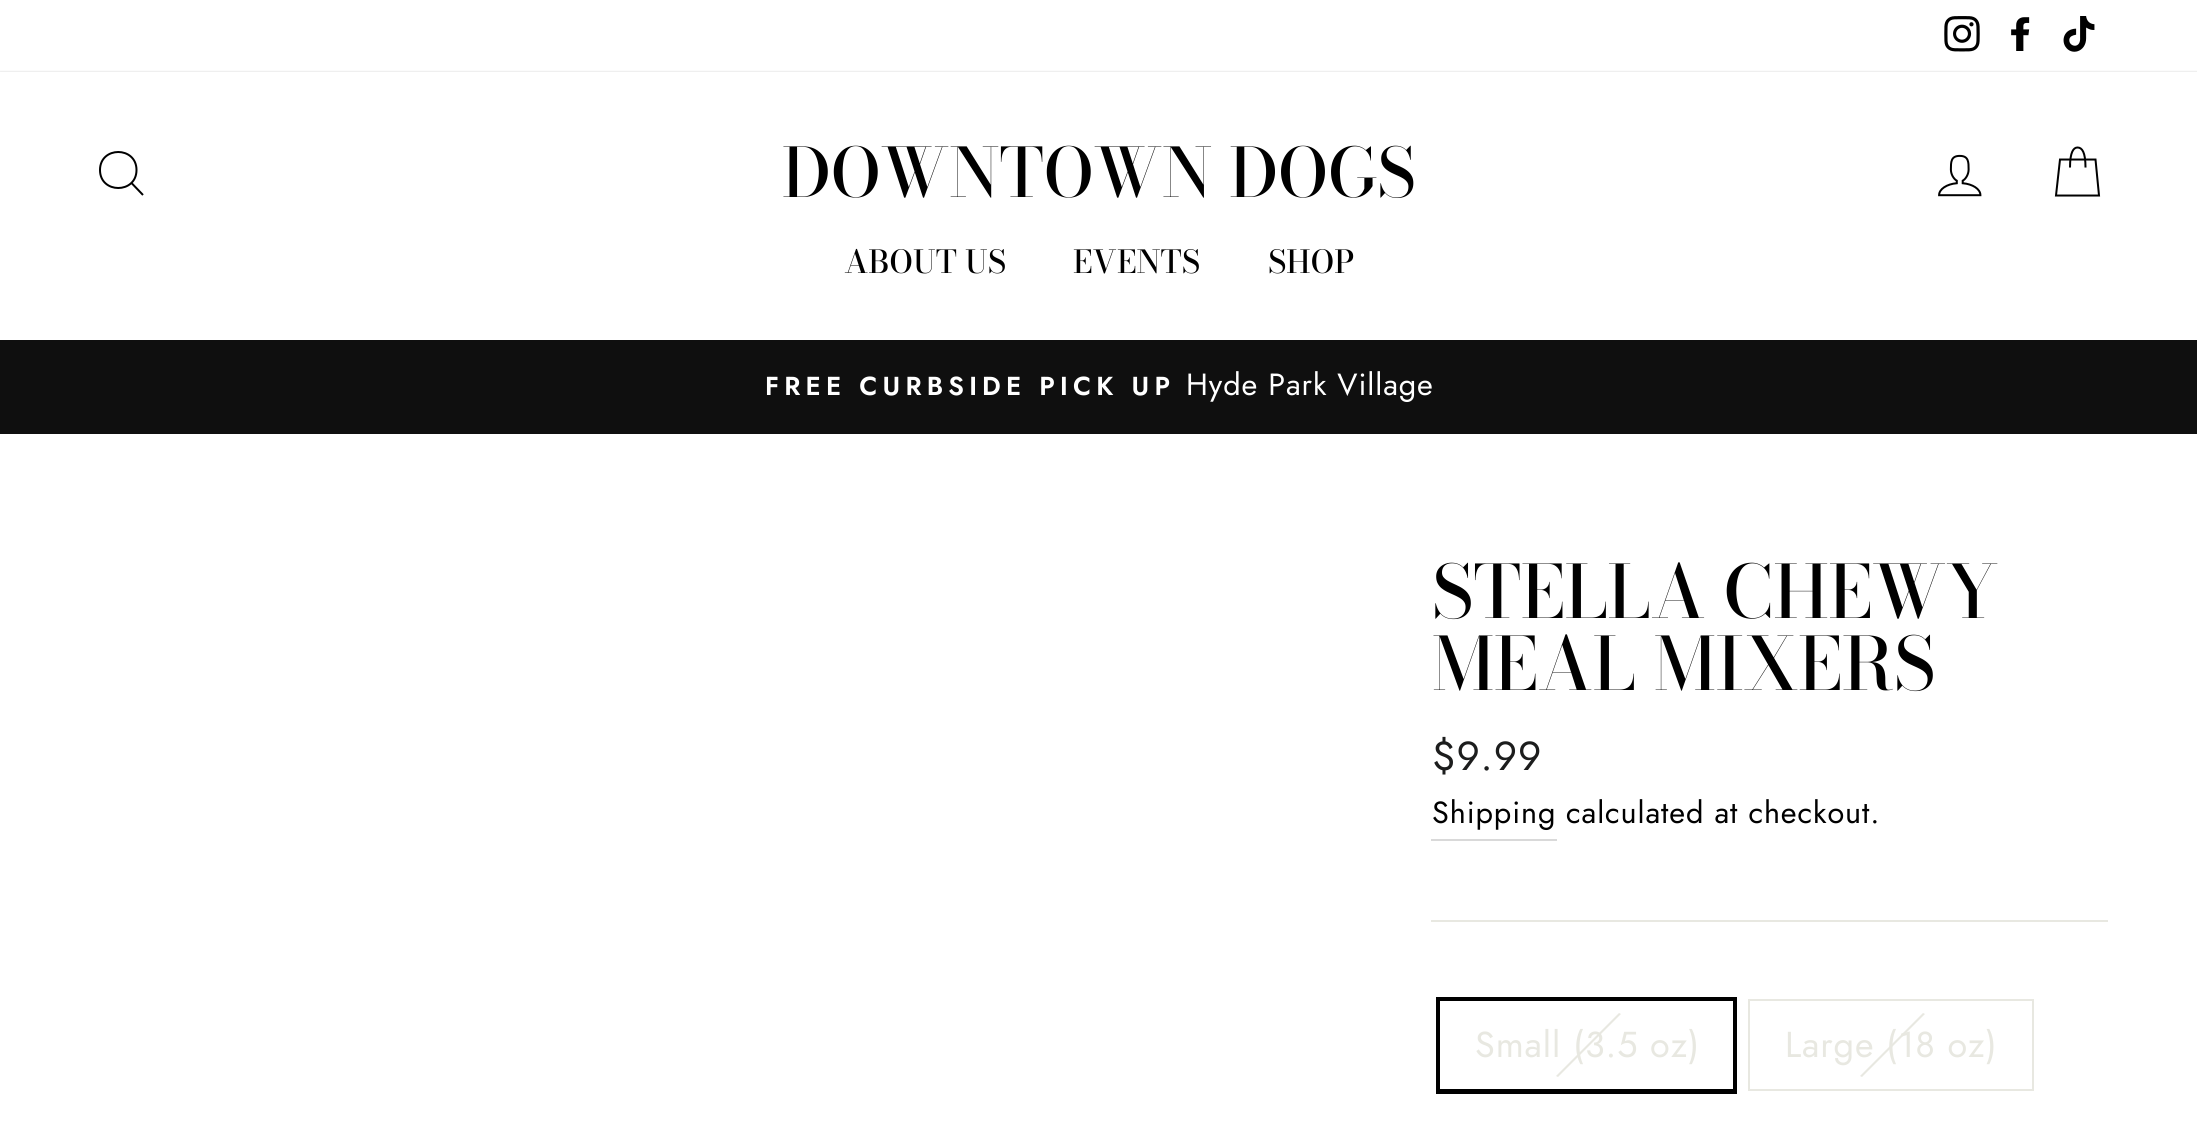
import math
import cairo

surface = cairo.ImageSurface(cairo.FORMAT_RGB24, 2197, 1135)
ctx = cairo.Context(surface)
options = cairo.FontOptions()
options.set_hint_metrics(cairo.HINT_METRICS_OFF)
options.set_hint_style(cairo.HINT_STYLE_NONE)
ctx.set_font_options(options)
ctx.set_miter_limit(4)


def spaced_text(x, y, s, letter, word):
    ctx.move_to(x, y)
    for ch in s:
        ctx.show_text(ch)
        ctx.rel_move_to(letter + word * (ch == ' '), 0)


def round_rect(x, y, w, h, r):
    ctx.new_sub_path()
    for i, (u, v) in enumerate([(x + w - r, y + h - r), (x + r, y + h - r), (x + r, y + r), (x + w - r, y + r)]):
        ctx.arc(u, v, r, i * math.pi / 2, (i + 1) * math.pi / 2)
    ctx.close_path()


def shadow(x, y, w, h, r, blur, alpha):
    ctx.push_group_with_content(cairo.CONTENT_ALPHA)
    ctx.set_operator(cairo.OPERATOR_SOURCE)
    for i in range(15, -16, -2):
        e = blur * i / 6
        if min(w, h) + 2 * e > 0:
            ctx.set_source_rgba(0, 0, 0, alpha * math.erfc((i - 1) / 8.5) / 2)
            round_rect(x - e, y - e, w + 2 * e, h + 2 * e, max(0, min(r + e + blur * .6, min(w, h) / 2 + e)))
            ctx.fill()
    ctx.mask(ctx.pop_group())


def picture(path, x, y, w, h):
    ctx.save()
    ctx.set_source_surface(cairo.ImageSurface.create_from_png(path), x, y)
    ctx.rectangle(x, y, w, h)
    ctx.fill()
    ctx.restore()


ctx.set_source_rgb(1, 1, 1)
ctx.paint()
picture("img1.png", 1944, 16, 36, 36)
picture("img2.png", 2011, 17, 19, 34)
picture("img3.png", 2063, 16, 32, 36)
ctx.set_source_rgb(0, 0, 0)
shadow(0, 72, 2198, 268, 0, 1, 0.2)
ctx.set_source_rgb(1, 1, 1)
ctx.rectangle(0, 72, 2197, 268)
ctx.fill()
ctx.new_path()
ctx.move_to(136.5, 170)
ctx.curve_to(136.5, 194, 100, 194, 100, 170)
ctx.curve_to(100, 146, 136.5, 146, 136.5, 170)
ctx.close_path()
ctx.move_to(143, 195)
ctx.line_to(131.5, 183)
ctx.set_source_rgb(0, 0, 0)
ctx.stroke()
ctx.select_font_face("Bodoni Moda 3 Medium")
ctx.set_font_size(67.5)
ctx.move_to(782, 197)
ctx.show_text("DOWNTOWN DOGS")
picture("img4.png", 1938, 154, 44, 43)
ctx.new_path()
ctx.move_to(2070, 167.5)
ctx.curve_to(2070, 152, 2073.5, 147.5, 2077.5, 147.5)
ctx.curve_to(2082, 147.5, 2085.5, 152, 2085.5, 167.5)
ctx.move_to(2060, 159.5)
ctx.line_to(2095.5, 159.5)
ctx.line_to(2099, 195.5)
ctx.line_to(2056, 195.5)
ctx.close_path()
ctx.stroke()
ctx.select_font_face("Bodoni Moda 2 Medium")
ctx.set_font_size(31.5)
ctx.move_to(844, 273)
ctx.show_text("ABOUT US")
ctx.move_to(1073, 273)
ctx.show_text("EVENTS")
ctx.move_to(1268, 273)
ctx.show_text("SHOP")
ctx.set_source_rgb(0.059, 0.059, 0.059)
ctx.rectangle(0, 340, 2197, 94)
ctx.fill()
ctx.select_font_face("Jost SemiBold")
ctx.set_font_size(26)
ctx.set_source_rgb(1, 1, 1)
spaced_text(765, 395, "FREE CURBSIDE PICK UP", 5.2, 0)
ctx.select_font_face("Jost")
ctx.set_font_size(30.6)
spaced_text(1186, 395, "Hyde Park Village", 0.9, 0)
ctx.select_font_face("Bodoni Moda Medium")
ctx.set_font_size(72.75)
ctx.set_source_rgb(0, 0, 0)
ctx.move_to(1432, 618)
ctx.show_text("STELLA CHEWY")
ctx.move_to(1432, 690)
ctx.show_text("MEAL MIXERS")
ctx.select_font_face("Jost")
ctx.set_font_size(40.5)
ctx.set_source_rgb(0.11, 0.114, 0.114)
spaced_text(1432, 770, "$9.99", 0.9, 0)
ctx.set_source_rgb(0.851, 0.851, 0.851)
ctx.rectangle(1431, 839, 126, 2)
ctx.fill()
ctx.set_font_size(30.6)
ctx.set_source_rgb(0, 0, 0)
spaced_text(1432, 823, "Shipping", 0.9, 0)
spaced_text(1566, 823, "calculated at checkout.", 0.9, 0)
ctx.set_source_rgb(0.91, 0.91, 0.882)
ctx.rectangle(1431, 920, 677, 2)
ctx.fill()
ctx.rectangle(1438.5, 999.5, 296, 92)
ctx.set_source_rgb(0, 0, 0)
ctx.set_line_width(5)
ctx.stroke()
ctx.set_source_rgb(1, 1, 1)
ctx.rectangle(1440, 1001, 293, 88)
ctx.fill()
ctx.set_source_rgb(0.91, 0.91, 0.882)
ctx.new_path()
ctx.move_to(1619, 1013)
ctx.line_to(1621, 1014)
ctx.line_to(1558, 1077)
ctx.line_to(1556, 1076)
ctx.close_path()
ctx.fill()
ctx.set_font_size(36)
spaced_text(1475, 1057, "Small (3.5 oz)", 0.9, 0)
ctx.rectangle(1749, 1000, 284, 90)
ctx.set_line_width(2)
ctx.stroke()
ctx.new_path()
ctx.move_to(1923, 1013)
ctx.line_to(1925, 1014)
ctx.line_to(1862, 1077)
ctx.line_to(1860, 1076)
ctx.close_path()
ctx.fill()
spaced_text(1785, 1057, "Large (18 oz)", 0.9, 0)
surface.write_to_png("page.png")
